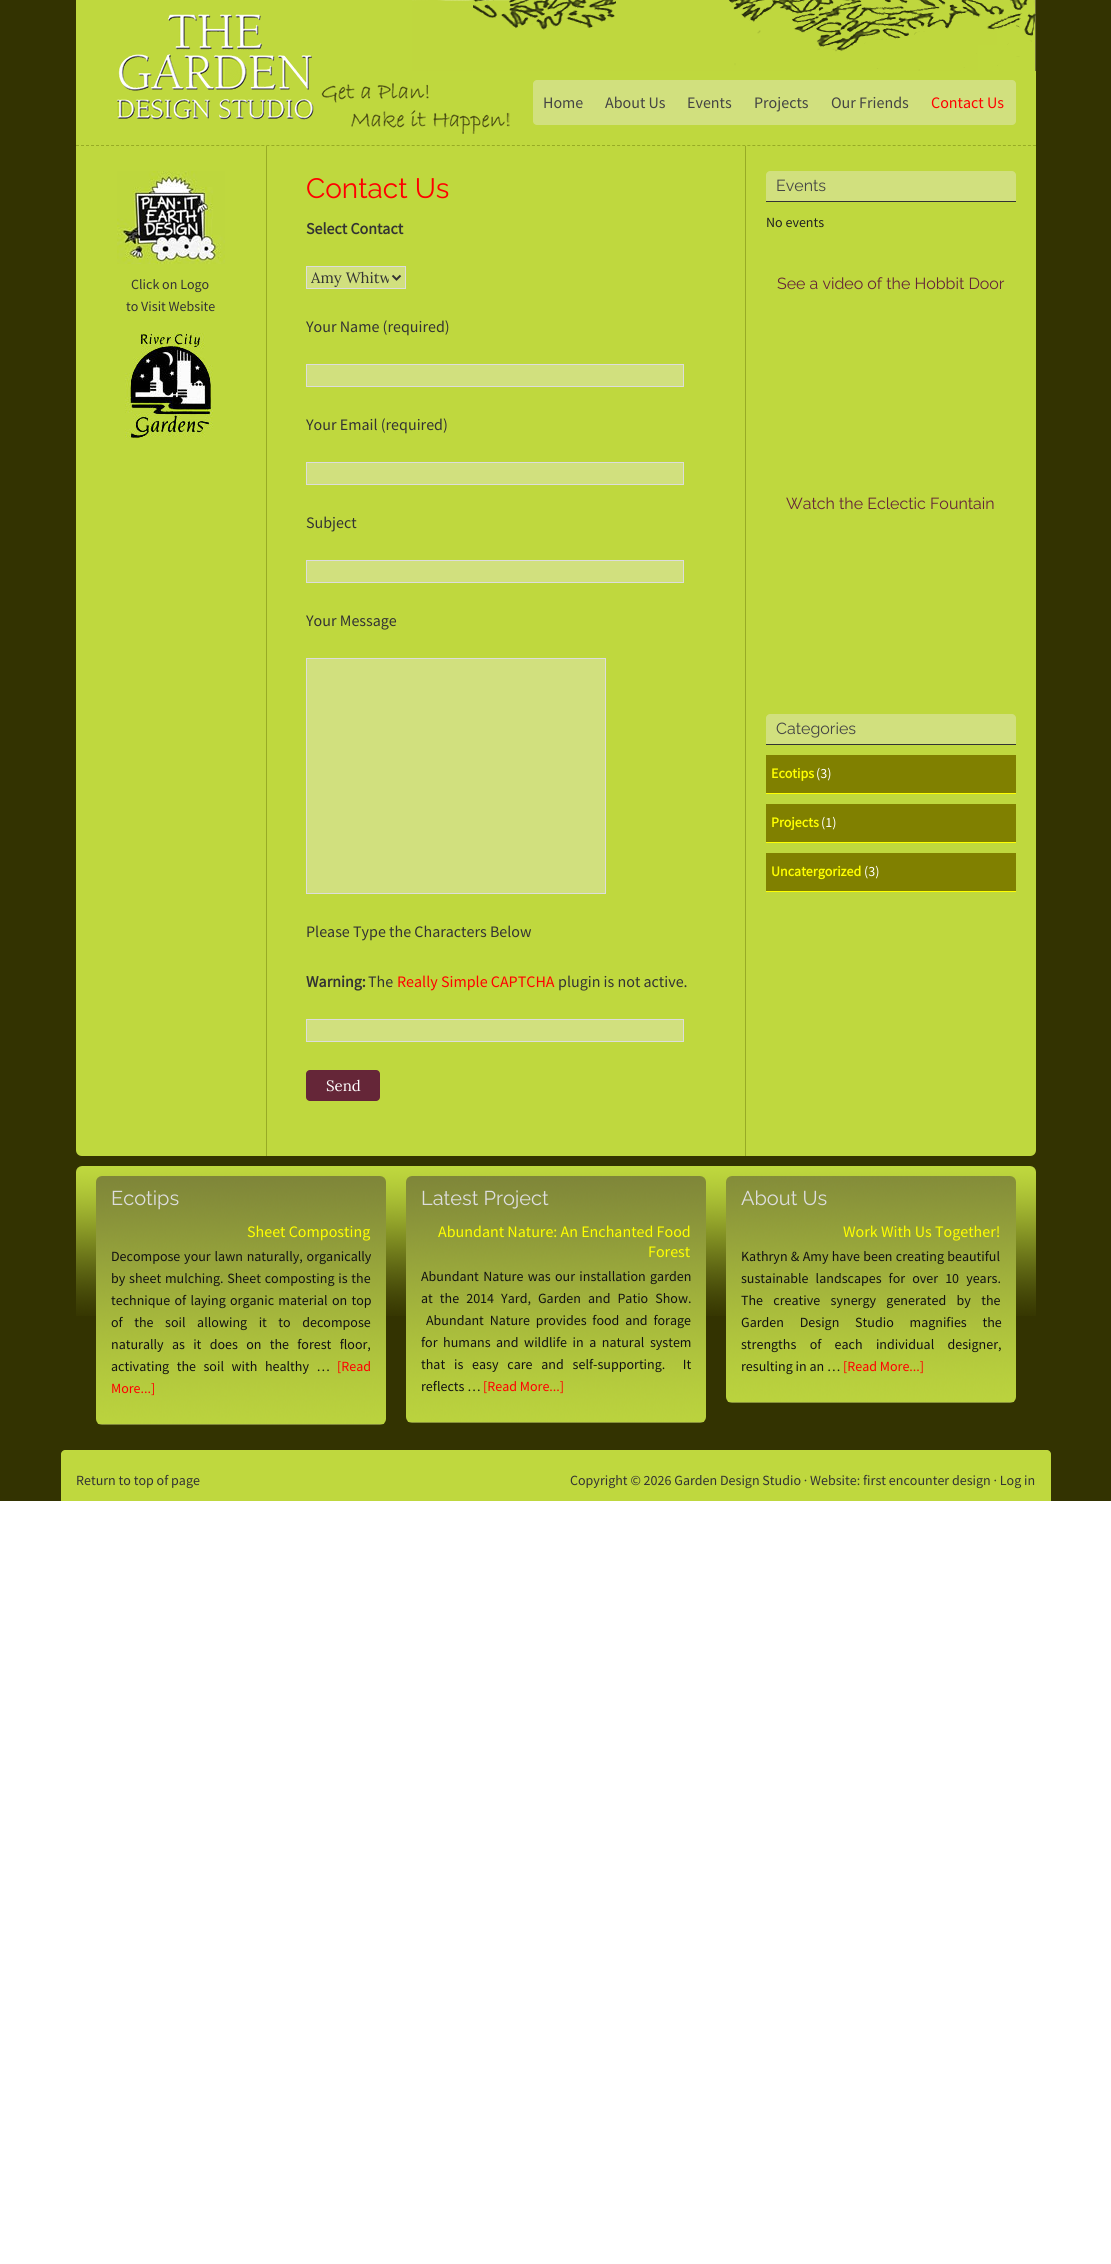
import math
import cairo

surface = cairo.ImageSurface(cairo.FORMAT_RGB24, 1111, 2264)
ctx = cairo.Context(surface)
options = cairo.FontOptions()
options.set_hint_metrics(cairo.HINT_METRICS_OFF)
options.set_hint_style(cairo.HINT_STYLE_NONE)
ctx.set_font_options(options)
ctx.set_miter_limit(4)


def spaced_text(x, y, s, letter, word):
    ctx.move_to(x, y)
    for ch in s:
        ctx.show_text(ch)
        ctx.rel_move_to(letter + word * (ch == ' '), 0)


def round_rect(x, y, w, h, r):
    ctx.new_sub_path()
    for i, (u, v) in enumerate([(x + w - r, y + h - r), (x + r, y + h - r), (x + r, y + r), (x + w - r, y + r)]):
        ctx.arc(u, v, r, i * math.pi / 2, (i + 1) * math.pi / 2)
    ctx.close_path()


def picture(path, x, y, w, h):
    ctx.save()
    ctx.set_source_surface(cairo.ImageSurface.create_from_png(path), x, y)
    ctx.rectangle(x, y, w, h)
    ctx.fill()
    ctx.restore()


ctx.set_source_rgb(1, 1, 1)
ctx.paint()
ctx.set_source_rgb(0.2, 0.2, 0.004)
ctx.rectangle(0, 0, 1111, 1501)
ctx.fill()
ctx.set_source_rgb(0.749, 0.847, 0.243)
ctx.rectangle(76, 0, 960, 146)
ctx.fill()
picture("img1.png", 116, 13, 394, 121)
ctx.new_path()
ctx.move_to(76, 145.5)
ctx.line_to(1036, 145.5)
ctx.set_source_rgb(0.592, 0.671, 0.145)
ctx.set_line_width(1)
ctx.set_dash([3, 2.01])
ctx.stroke()
picture("img2.png", 412, 0, 624, 71)
ctx.set_source_rgb(0.82, 0.878, 0.494)
round_rect(533, 80, 483, 45, 4)
ctx.fill()
ctx.select_font_face("Source Sans Pro")
ctx.set_font_size(16)
ctx.set_source_rgb(0.267, 0.267, 0.267)
ctx.move_to(543, 108)
ctx.show_text("Home")
ctx.move_to(605, 108)
ctx.show_text("About Us")
ctx.move_to(687, 108)
ctx.show_text("Events")
ctx.move_to(754, 108)
ctx.show_text("Projects")
ctx.move_to(831, 108)
ctx.show_text("Our Friends")
ctx.set_source_rgb(1, 0, 0)
ctx.move_to(931, 108)
ctx.show_text("Contact Us")
ctx.set_source_rgb(0.749, 0.847, 0.243)
ctx.new_path()
ctx.move_to(76, 146)
ctx.line_to(1036, 146)
ctx.line_to(1036, 1150)
ctx.curve_to(1036, 1153.5, 1033.5, 1156, 1030, 1156)
ctx.line_to(82, 1156)
ctx.curve_to(78.5, 1156, 76, 1153.5, 76, 1150)
ctx.close_path()
ctx.fill()
picture("img3.png", 117, 171, 108, 93)
ctx.set_font_size(14)
ctx.set_source_rgb(0.2, 0.2, 0.2)
ctx.move_to(131, 289)
ctx.show_text("Click on Logo")
ctx.move_to(126, 311)
ctx.show_text("to Visit Website")
picture("img4.png", 125, 333, 88, 106)
ctx.set_source_rgb(0.592, 0.671, 0.145)
ctx.rectangle(745, 146, 1, 1010)
ctx.fill()
ctx.rectangle(266, 146, 1, 1010)
ctx.fill()
ctx.select_font_face("Raleway")
ctx.set_font_size(28)
ctx.set_source_rgb(1, 0, 0)
ctx.move_to(306, 198)
ctx.show_text("Contact Us")
ctx.select_font_face("Source Sans Pro", cairo.FONT_SLANT_NORMAL, cairo.FONT_WEIGHT_BOLD)
ctx.set_font_size(16)
ctx.set_source_rgb(0.2, 0.2, 0.2)
ctx.move_to(306, 234)
ctx.show_text("Select Contact")
ctx.set_source_rgb(0.82, 0.878, 0.494)
ctx.rectangle(306.5, 266.5, 99, 22)
ctx.fill_preserve()
ctx.set_source_rgb(0.867, 0.867, 0.867)
ctx.set_dash([])
ctx.stroke()
ctx.new_path()
ctx.move_to(392.5, 275.5)
ctx.line_to(396.5, 279.5)
ctx.line_to(400.5, 275.5)
ctx.set_source_rgb(0.2, 0.2, 0.2)
ctx.set_line_width(2)
ctx.stroke()
ctx.save()
ctx.rectangle(311, 267, 78, 21)
ctx.clip()
ctx.select_font_face("Lora")
ctx.set_font_size(15)
ctx.move_to(311, 283)
ctx.show_text("Amy Whitw")
ctx.restore()
ctx.select_font_face("Source Sans Pro")
ctx.move_to(306, 332)
ctx.show_text("Your Name (required)")
ctx.set_source_rgb(0.82, 0.878, 0.494)
ctx.rectangle(306.5, 364.5, 377, 22)
ctx.fill_preserve()
ctx.set_source_rgb(0.867, 0.867, 0.867)
ctx.set_line_width(1)
ctx.stroke()
ctx.set_source_rgb(0.2, 0.2, 0.2)
ctx.move_to(306, 430)
ctx.show_text("Your Email (required)")
ctx.set_source_rgb(0.82, 0.878, 0.494)
ctx.rectangle(306.5, 462.5, 377, 22)
ctx.fill_preserve()
ctx.set_source_rgb(0.867, 0.867, 0.867)
ctx.stroke()
ctx.set_source_rgb(0.2, 0.2, 0.2)
ctx.move_to(306, 528)
ctx.show_text("Subject")
ctx.set_source_rgb(0.82, 0.878, 0.494)
ctx.rectangle(306.5, 560.5, 377, 22)
ctx.fill_preserve()
ctx.set_source_rgb(0.867, 0.867, 0.867)
ctx.stroke()
ctx.set_source_rgb(0.2, 0.2, 0.2)
ctx.move_to(306, 626)
ctx.show_text("Your Message")
ctx.set_source_rgb(0.82, 0.878, 0.494)
ctx.rectangle(306.5, 658.5, 299, 235)
ctx.fill_preserve()
ctx.set_source_rgb(0.867, 0.867, 0.867)
ctx.stroke()
ctx.set_source_rgb(0.2, 0.2, 0.2)
ctx.move_to(306, 937)
ctx.show_text("Please Type the Characters Below")
ctx.select_font_face("Source Sans Pro", cairo.FONT_SLANT_NORMAL, cairo.FONT_WEIGHT_BOLD)
ctx.move_to(306, 987)
ctx.show_text("Warning:")
ctx.select_font_face("Source Sans Pro")
ctx.move_to(368, 987)
ctx.show_text("The")
ctx.set_source_rgb(1, 0, 0)
ctx.move_to(397, 987)
ctx.show_text("Really Simple CAPTCHA")
ctx.set_source_rgb(0.2, 0.2, 0.2)
ctx.move_to(558, 987)
ctx.show_text("plugin is not active.")
ctx.set_source_rgb(0.82, 0.878, 0.494)
ctx.rectangle(306.5, 1019.5, 377, 22)
ctx.fill_preserve()
ctx.set_source_rgb(0.867, 0.867, 0.867)
ctx.stroke()
ctx.set_source_rgb(0.396, 0.149, 0.22)
round_rect(306, 1070, 74, 31, 4)
ctx.fill()
ctx.select_font_face("Lora")
ctx.set_font_size(15)
ctx.set_source_rgb(1, 1, 1)
ctx.move_to(326, 1091)
ctx.show_text("Send")
ctx.set_source_rgb(0.82, 0.878, 0.494)
ctx.new_path()
ctx.move_to(770, 171)
ctx.line_to(1012, 171)
ctx.curve_to(1014, 171, 1016, 173, 1016, 175)
ctx.line_to(1016, 202)
ctx.line_to(766, 202)
ctx.line_to(766, 175)
ctx.curve_to(766, 173, 768, 171, 770, 171)
ctx.close_path()
ctx.fill()
ctx.set_source_rgb(0.2, 0.2, 0.2)
ctx.rectangle(766, 201, 250, 1)
ctx.fill()
ctx.select_font_face("Raleway")
ctx.set_font_size(16)
ctx.set_source_rgb(0.267, 0.267, 0.267)
ctx.move_to(776, 191)
ctx.show_text("Events")
ctx.select_font_face("Source Sans Pro")
ctx.set_font_size(14)
ctx.set_source_rgb(0.129, 0.129, 0.129)
ctx.move_to(766, 227)
ctx.show_text("No events")
ctx.select_font_face("Raleway")
ctx.set_font_size(16)
ctx.set_source_rgb(0.396, 0.149, 0.22)
ctx.move_to(777, 289)
ctx.show_text("See a video of the Hobbit Door")
ctx.move_to(786, 509)
ctx.show_text("Watch the Eclectic Fountain")
ctx.set_source_rgb(0.82, 0.878, 0.494)
ctx.new_path()
ctx.move_to(770, 714)
ctx.line_to(1012, 714)
ctx.curve_to(1014, 714, 1016, 716, 1016, 718)
ctx.line_to(1016, 745)
ctx.line_to(766, 745)
ctx.line_to(766, 718)
ctx.curve_to(766, 716, 768, 714, 770, 714)
ctx.close_path()
ctx.fill()
ctx.set_source_rgb(0.2, 0.2, 0.2)
ctx.rectangle(766, 744, 250, 1)
ctx.fill()
ctx.set_source_rgb(0.267, 0.267, 0.267)
ctx.move_to(776, 734)
ctx.show_text("Categories")
ctx.set_source_rgb(0.502, 0.502, 0)
ctx.rectangle(766, 755, 250, 38)
ctx.fill()
ctx.set_source_rgb(1, 1, 0)
ctx.rectangle(766, 793, 250, 1)
ctx.fill()
ctx.select_font_face("Source Sans Pro", cairo.FONT_SLANT_NORMAL, cairo.FONT_WEIGHT_BOLD)
ctx.set_font_size(14)
ctx.move_to(771, 778)
ctx.show_text("Ecotips")
ctx.select_font_face("Source Sans Pro")
ctx.set_source_rgb(1, 1, 1)
ctx.move_to(816, 778)
ctx.show_text("(3)")
ctx.set_source_rgb(0.502, 0.502, 0)
ctx.rectangle(766, 804, 250, 38)
ctx.fill()
ctx.set_source_rgb(1, 1, 0)
ctx.rectangle(766, 842, 250, 1)
ctx.fill()
ctx.select_font_face("Source Sans Pro", cairo.FONT_SLANT_NORMAL, cairo.FONT_WEIGHT_BOLD)
ctx.move_to(771, 827)
ctx.show_text("Projects")
ctx.select_font_face("Source Sans Pro")
ctx.set_source_rgb(1, 1, 1)
ctx.move_to(821, 827)
ctx.show_text("(1)")
ctx.set_source_rgb(0.502, 0.502, 0)
ctx.rectangle(766, 853, 250, 38)
ctx.fill()
ctx.set_source_rgb(1, 1, 0)
ctx.rectangle(766, 891, 250, 1)
ctx.fill()
ctx.select_font_face("Source Sans Pro", cairo.FONT_SLANT_NORMAL, cairo.FONT_WEIGHT_BOLD)
ctx.move_to(771, 876)
ctx.show_text("Uncatergorized")
ctx.select_font_face("Source Sans Pro")
ctx.set_source_rgb(1, 1, 1)
ctx.move_to(864, 876)
ctx.show_text("(3)")
picture("img5.png", 76, 1166, 960, 150)
picture("img6.png", 96, 1176, 290, 249)
ctx.select_font_face("Raleway")
ctx.set_font_size(20)
ctx.set_source_rgb(0.867, 0.867, 0.867)
ctx.move_to(111, 1205)
ctx.show_text("Ecotips")
ctx.select_font_face("Source Sans Pro")
ctx.set_font_size(16)
ctx.set_source_rgb(1, 1, 0)
ctx.move_to(247, 1237)
ctx.show_text("Sheet Composting")
ctx.set_font_size(14)
ctx.set_source_rgb(0.067, 0.067, 0.067)
spaced_text(111, 1261, "Decompose your lawn naturally, organically", 0, 1)
spaced_text(111, 1283, "by sheet mulching. Sheet composting is the", 0, 1)
spaced_text(111, 1305, "technique of laying organic material on top", 0, 1.5)
spaced_text(111, 1327, "of the soil allowing it to decompose", 0, 8.75)
spaced_text(111, 1349, "naturally as it does on the forest floor,", 0, 5.5)
spaced_text(111, 1371, "activating the soil with healthy …", 0, 4.75)
ctx.set_source_rgb(1, 0, 0)
ctx.move_to(337, 1371)
ctx.show_text("[Read")
ctx.move_to(111, 1393)
ctx.show_text("More...]")
picture("img7.png", 406, 1176, 300, 247)
ctx.select_font_face("Raleway")
ctx.set_font_size(20)
ctx.set_source_rgb(0.867, 0.867, 0.867)
ctx.move_to(421, 1205)
ctx.show_text("Latest Project")
ctx.select_font_face("Source Sans Pro")
ctx.set_font_size(16)
ctx.set_source_rgb(1, 1, 0)
ctx.move_to(438, 1237)
ctx.show_text("Abundant Nature: An Enchanted Food")
ctx.move_to(648, 1257)
ctx.show_text("Forest")
ctx.set_font_size(14)
ctx.set_source_rgb(0.067, 0.067, 0.067)
spaced_text(421, 1281, "Abundant Nature was our installation garden", 0, 1.5)
spaced_text(421, 1303, "at the 2014 Yard, Garden and Patio Show.", 0, 4.25)
spaced_text(426, 1325, "Abundant Nature provides food and forage", 0, 3)
spaced_text(421, 1347, "for humans and wildlife in a natural system", 0, 2.75)
spaced_text(421, 1369, "that is easy care and self-supporting.  It", 0, 6)
ctx.move_to(421, 1391)
ctx.show_text("reflects …")
ctx.set_source_rgb(1, 0, 0)
ctx.move_to(483, 1391)
ctx.show_text("[Read More...]")
picture("img8.png", 726, 1176, 290, 227)
ctx.select_font_face("Raleway")
ctx.set_font_size(20)
ctx.set_source_rgb(0.867, 0.867, 0.867)
ctx.move_to(741, 1205)
ctx.show_text("About Us")
ctx.select_font_face("Source Sans Pro")
ctx.set_font_size(16)
ctx.set_source_rgb(1, 1, 0)
ctx.move_to(843, 1237)
ctx.show_text("Work With Us Together!")
ctx.set_font_size(14)
ctx.set_source_rgb(0.067, 0.067, 0.067)
spaced_text(741, 1261, "Kathryn & Amy have been creating beautiful", 0, 0.5)
spaced_text(741, 1283, "sustainable landscapes for over 10 years.", 0, 4.25)
spaced_text(741, 1305, "The creative synergy generated by the", 0, 7.5)
spaced_text(741, 1327, "Garden Design Studio magnifies the", 0, 13)
spaced_text(741, 1349, "strengths of each individual designer,", 0, 10.5)
ctx.move_to(741, 1371)
ctx.show_text("resulting in an …")
ctx.set_source_rgb(1, 0, 0)
ctx.move_to(843, 1371)
ctx.show_text("[Read More...]")
ctx.set_source_rgb(0.749, 0.847, 0.243)
ctx.new_path()
ctx.move_to(65, 1450)
ctx.line_to(1047, 1450)
ctx.curve_to(1049, 1450, 1051, 1452, 1051, 1454)
ctx.line_to(1051, 1501)
ctx.line_to(61, 1501)
ctx.line_to(61, 1454)
ctx.curve_to(61, 1452, 63, 1450, 65, 1450)
ctx.close_path()
ctx.fill()
ctx.set_source_rgb(0.2, 0.2, 0.2)
ctx.move_to(76, 1485)
ctx.show_text("Return to top of page")
ctx.move_to(570, 1485)
ctx.show_text("Copyright © 2026 Garden Design Studio · Website: first encounter design · Log in")
surface.write_to_png("page.png")
